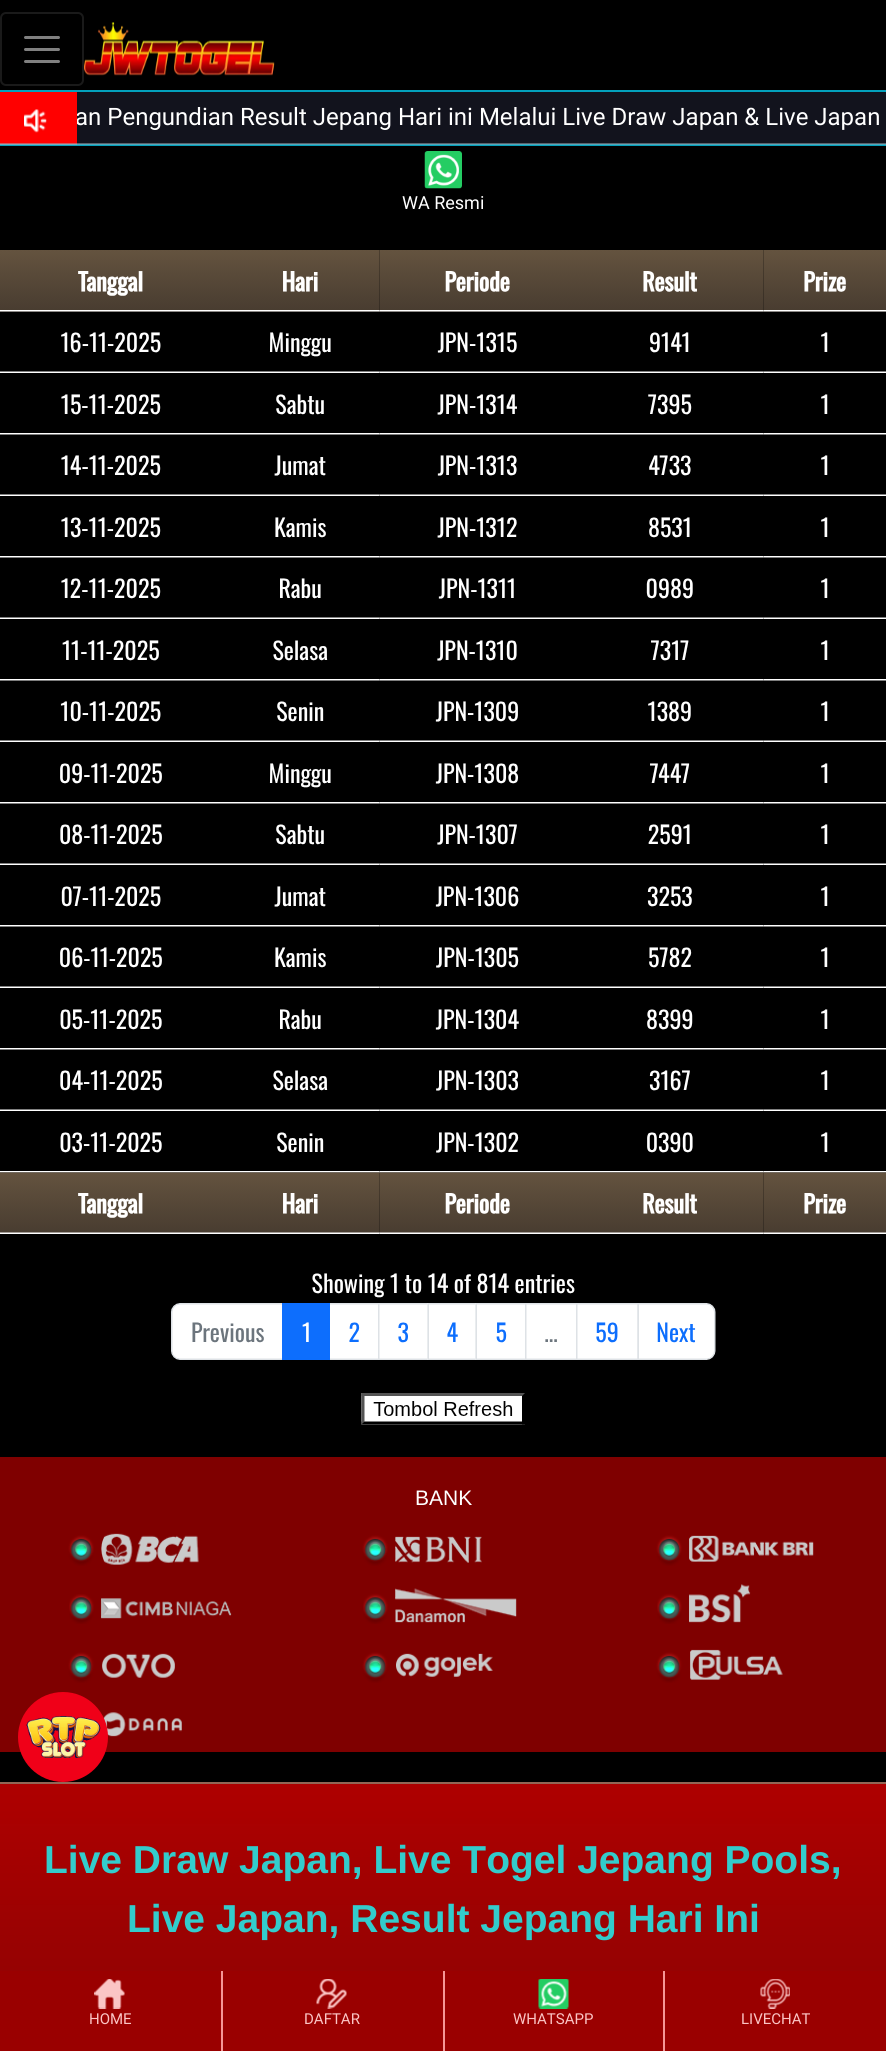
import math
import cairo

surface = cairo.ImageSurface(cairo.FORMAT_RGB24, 886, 2051)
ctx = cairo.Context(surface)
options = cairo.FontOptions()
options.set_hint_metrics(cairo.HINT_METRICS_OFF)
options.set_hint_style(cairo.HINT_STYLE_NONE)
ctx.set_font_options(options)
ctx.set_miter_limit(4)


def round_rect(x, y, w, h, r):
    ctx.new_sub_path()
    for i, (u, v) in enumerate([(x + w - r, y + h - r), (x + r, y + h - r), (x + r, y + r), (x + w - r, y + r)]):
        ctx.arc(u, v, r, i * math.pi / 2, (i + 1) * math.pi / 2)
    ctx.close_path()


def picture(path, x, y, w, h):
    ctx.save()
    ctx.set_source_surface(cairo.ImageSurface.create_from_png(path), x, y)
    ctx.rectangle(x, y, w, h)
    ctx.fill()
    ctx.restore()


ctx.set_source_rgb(0, 0, 0)
ctx.paint()
round_rect(1, 13, 82, 72, 5)
ctx.set_source_rgb(0.102, 0.102, 0.102)
ctx.stroke()
ctx.new_path()
ctx.move_to(25.5, 37.5)
ctx.line_to(58.5, 37.5)
ctx.move_to(25.5, 49.5)
ctx.line_to(58.5, 49.5)
ctx.move_to(25.5, 61.5)
ctx.line_to(58.5, 61.5)
ctx.set_source_rgb(0.502, 0.502, 0.502)
ctx.set_line_width(3)
ctx.set_line_cap(cairo.LINE_CAP_ROUND)
ctx.stroke()
picture("img1.png", 84, 22, 191, 54)
ctx.set_source_rgb(0.012, 0.631, 0.737)
ctx.rectangle(0, 90, 886, 2)
ctx.fill()
ctx.rectangle(0, 145, 886, 1)
ctx.fill()
ctx.set_source_rgb(0.322, 0.663, 0.737)
ctx.rectangle(77, 144, 809, 1)
ctx.fill()
ctx.set_source_rgb(0.478, 0.678, 0.737)
ctx.rectangle(0, 144, 77, 1)
ctx.fill()
ctx.set_source_rgb(0.071, 0.078, 0.114)
ctx.rectangle(77, 92, 809, 51)
ctx.fill()
ctx.set_source_rgb(0.353, 0.388, 0.427)
ctx.rectangle(77, 143, 809, 1)
ctx.fill()
ctx.set_source_rgb(1, 0, 0)
ctx.rectangle(0, 92, 77, 51)
ctx.fill()
ctx.set_source_rgb(0.816, 0.349, 0.369)
ctx.rectangle(0, 143, 77, 1)
ctx.fill()
picture("img2.png", 24, 109, 23, 24)
ctx.save()
ctx.rectangle(77, 99, 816, 36)
ctx.clip()
ctx.select_font_face("Roboto")
ctx.set_font_size(24)
ctx.set_source_rgb(1, 1, 1)
ctx.move_to(75, 125)
ctx.show_text("an Pengundian Result Jepang Hari ini Melalui Live Draw Japan & Live Japan")
ctx.restore()
picture("img3.png", 424, 151, 38, 38)
ctx.select_font_face("Roboto")
ctx.set_font_size(18)
ctx.set_source_rgb(1, 1, 1)
ctx.move_to(402, 209)
ctx.show_text("WA Resmi")
picture("img4.png", 0, 250, 886, 1175)
ctx.set_source_rgb(0.498, 0, 0)
ctx.rectangle(0, 1457, 886, 295)
ctx.fill()
ctx.select_font_face("Liberation Sans")
ctx.set_font_size(21)
ctx.set_source_rgb(1, 1, 1)
ctx.move_to(415, 1505)
ctx.show_text("BANK")
picture("img5.png", 68, 1533, 131, 33)
picture("img6.png", 362, 1535, 120, 31)
picture("img7.png", 656, 1535, 158, 31)
picture("img8.png", 69, 1594, 163, 30)
picture("img9.png", 363, 1588, 154, 36)
picture("img10.png", 657, 1584, 94, 40)
picture("img11.png", 68, 1652, 107, 31)
picture("img12.png", 362, 1652, 131, 31)
picture("img13.png", 656, 1649, 127, 34)
picture("img14.png", 103, 1712, 79, 25)
ctx.set_source_rgb(0.941, 0, 0.094)
ctx.arc(63, 1737, 45, 0, 2 * math.pi)
ctx.fill()
picture("img15.png", 26, 1716, 75, 42)
gradient = cairo.LinearGradient(443, 1784, 443, 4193)
gradient.add_color_stop_rgba(0, 0.682, 0, 0, 1)
gradient.add_color_stop_rgba(0.4, 0.196, 0.047, 0.047, 1)
ctx.set_source(gradient)
ctx.rectangle(0, 1784, 886, 187)
ctx.fill()
ctx.set_source_rgb(0.576, 0.4, 0.333)
ctx.rectangle(0, 1782, 886, 2)
ctx.fill()
ctx.select_font_face("Liberation Sans", cairo.FONT_SLANT_NORMAL, cairo.FONT_WEIGHT_BOLD)
ctx.set_font_size(39)
ctx.set_source_rgb(0.2, 0.8, 0.8)
ctx.move_to(44, 1873)
ctx.show_text("Live Draw Japan, Live Togel Jepang Pools,")
ctx.move_to(127, 1932)
ctx.show_text("Live Japan, Result Jepang Hari Ini")
ctx.set_source_rgb(0.604, 0, 0)
ctx.rectangle(0, 1971, 886, 80)
ctx.fill()
ctx.set_source_rgb(0.961, 0.588, 0.588)
ctx.rectangle(221, 1971, 2, 80)
ctx.fill()
picture("img16.png", 94, 1979, 31, 30)
ctx.select_font_face("Roboto")
ctx.set_font_size(15)
ctx.set_source_rgb(0.984, 0.773, 0.773)
ctx.move_to(89, 2024)
ctx.show_text("HOME")
ctx.set_source_rgb(0.961, 0.588, 0.588)
ctx.rectangle(443, 1971, 2, 80)
ctx.fill()
picture("img17.png", 316, 1979, 31, 30)
ctx.set_source_rgb(0.984, 0.773, 0.773)
ctx.move_to(304, 2024)
ctx.show_text("DAFTAR")
ctx.set_source_rgb(0.961, 0.588, 0.588)
ctx.rectangle(663, 1971, 2, 80)
ctx.fill()
picture("img18.png", 538, 1979, 31, 30)
ctx.set_source_rgb(0.984, 0.773, 0.773)
ctx.move_to(513, 2024)
ctx.show_text("WHATSAPP")
picture("img19.png", 760, 1979, 30, 30)
ctx.move_to(741, 2024)
ctx.show_text("LIVECHAT")
surface.write_to_png("page.png")
